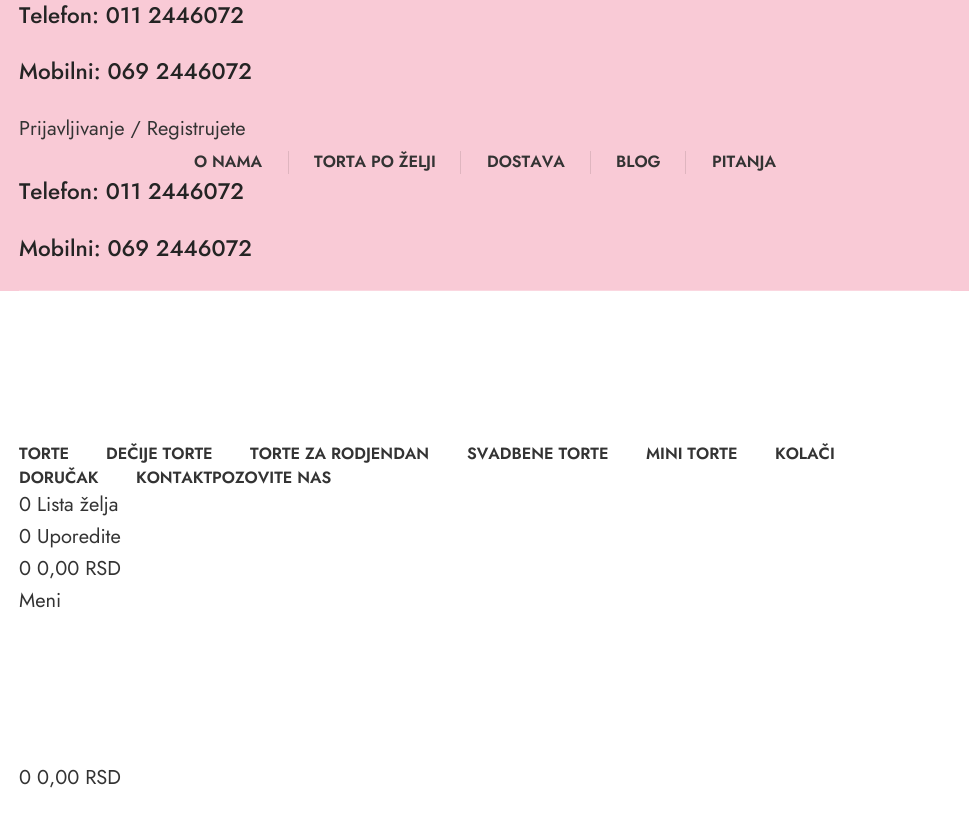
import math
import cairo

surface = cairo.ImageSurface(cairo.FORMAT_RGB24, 969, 833)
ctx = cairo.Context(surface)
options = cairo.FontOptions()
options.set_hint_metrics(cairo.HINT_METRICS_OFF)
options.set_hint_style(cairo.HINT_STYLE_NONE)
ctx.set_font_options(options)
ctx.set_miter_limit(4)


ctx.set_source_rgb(1, 1, 1)
ctx.paint()
ctx.set_source_rgb(0.976, 0.792, 0.839)
ctx.rectangle(0, 0, 969, 291)
ctx.fill()
ctx.set_source_rgb(0.984, 0.843, 0.878)
ctx.rectangle(19, 290, 932, 1)
ctx.fill()
ctx.select_font_face("Jost Medium")
ctx.set_font_size(22.5)
ctx.set_source_rgb(0.141, 0.141, 0.141)
ctx.move_to(19, 23)
ctx.show_text("Telefon: 011 2446072")
ctx.move_to(19, 79)
ctx.show_text("Mobilni: 069 2446072")
ctx.select_font_face("Jost")
ctx.set_font_size(20)
ctx.set_source_rgb(0.2, 0.2, 0.2)
ctx.move_to(19, 135)
ctx.show_text("Prijavljivanje / Registrujete")
ctx.select_font_face("Jost SemiBold")
ctx.set_font_size(16.25)
ctx.move_to(194, 167)
ctx.show_text("O NAMA")
ctx.set_source_rgb(0.875, 0.71, 0.749)
ctx.rectangle(288, 151, 1, 23)
ctx.fill()
ctx.set_source_rgb(0.2, 0.2, 0.2)
ctx.move_to(314, 167)
ctx.show_text("TORTA PO ŽELJI")
ctx.set_source_rgb(0.875, 0.71, 0.749)
ctx.rectangle(460, 151, 1, 23)
ctx.fill()
ctx.set_source_rgb(0.2, 0.2, 0.2)
ctx.move_to(487, 167)
ctx.show_text("DOSTAVA")
ctx.set_source_rgb(0.875, 0.71, 0.749)
ctx.rectangle(590, 151, 1, 23)
ctx.fill()
ctx.set_source_rgb(0.2, 0.2, 0.2)
ctx.move_to(616, 167)
ctx.show_text("BLOG")
ctx.set_source_rgb(0.875, 0.71, 0.749)
ctx.rectangle(685, 151, 1, 23)
ctx.fill()
ctx.set_source_rgb(0.2, 0.2, 0.2)
ctx.move_to(712, 167)
ctx.show_text("PITANJA")
ctx.select_font_face("Jost Medium")
ctx.set_font_size(22.5)
ctx.set_source_rgb(0.141, 0.141, 0.141)
ctx.move_to(19, 199)
ctx.show_text("Telefon: 011 2446072")
ctx.move_to(19, 256)
ctx.show_text("Mobilni: 069 2446072")
ctx.select_font_face("Jost SemiBold")
ctx.set_font_size(16.25)
ctx.set_source_rgb(0.2, 0.2, 0.2)
ctx.move_to(19, 459)
ctx.show_text("TORTE")
ctx.move_to(106, 459)
ctx.show_text("DEČIJE TORTE")
ctx.move_to(250, 459)
ctx.show_text("TORTE ZA RODJENDAN")
ctx.move_to(467, 459)
ctx.show_text("SVADBENE TORTE")
ctx.move_to(646, 459)
ctx.show_text("MINI TORTE")
ctx.move_to(775, 459)
ctx.show_text("KOLAČI")
ctx.move_to(19, 483)
ctx.show_text("DORUČAK")
ctx.move_to(136, 483)
ctx.show_text("KONTAKT")
ctx.move_to(212, 483)
ctx.show_text("POZOVITE NAS")
ctx.select_font_face("Jost")
ctx.set_font_size(20)
ctx.move_to(19, 511)
ctx.show_text("0 Lista želja")
ctx.move_to(19, 543)
ctx.show_text("0 Uporedite")
ctx.move_to(19, 575)
ctx.show_text("0 0,00 RSD")
ctx.move_to(19, 607)
ctx.show_text("Meni")
ctx.move_to(19, 784)
ctx.show_text("0 0,00 RSD")
surface.write_to_png("page.png")
